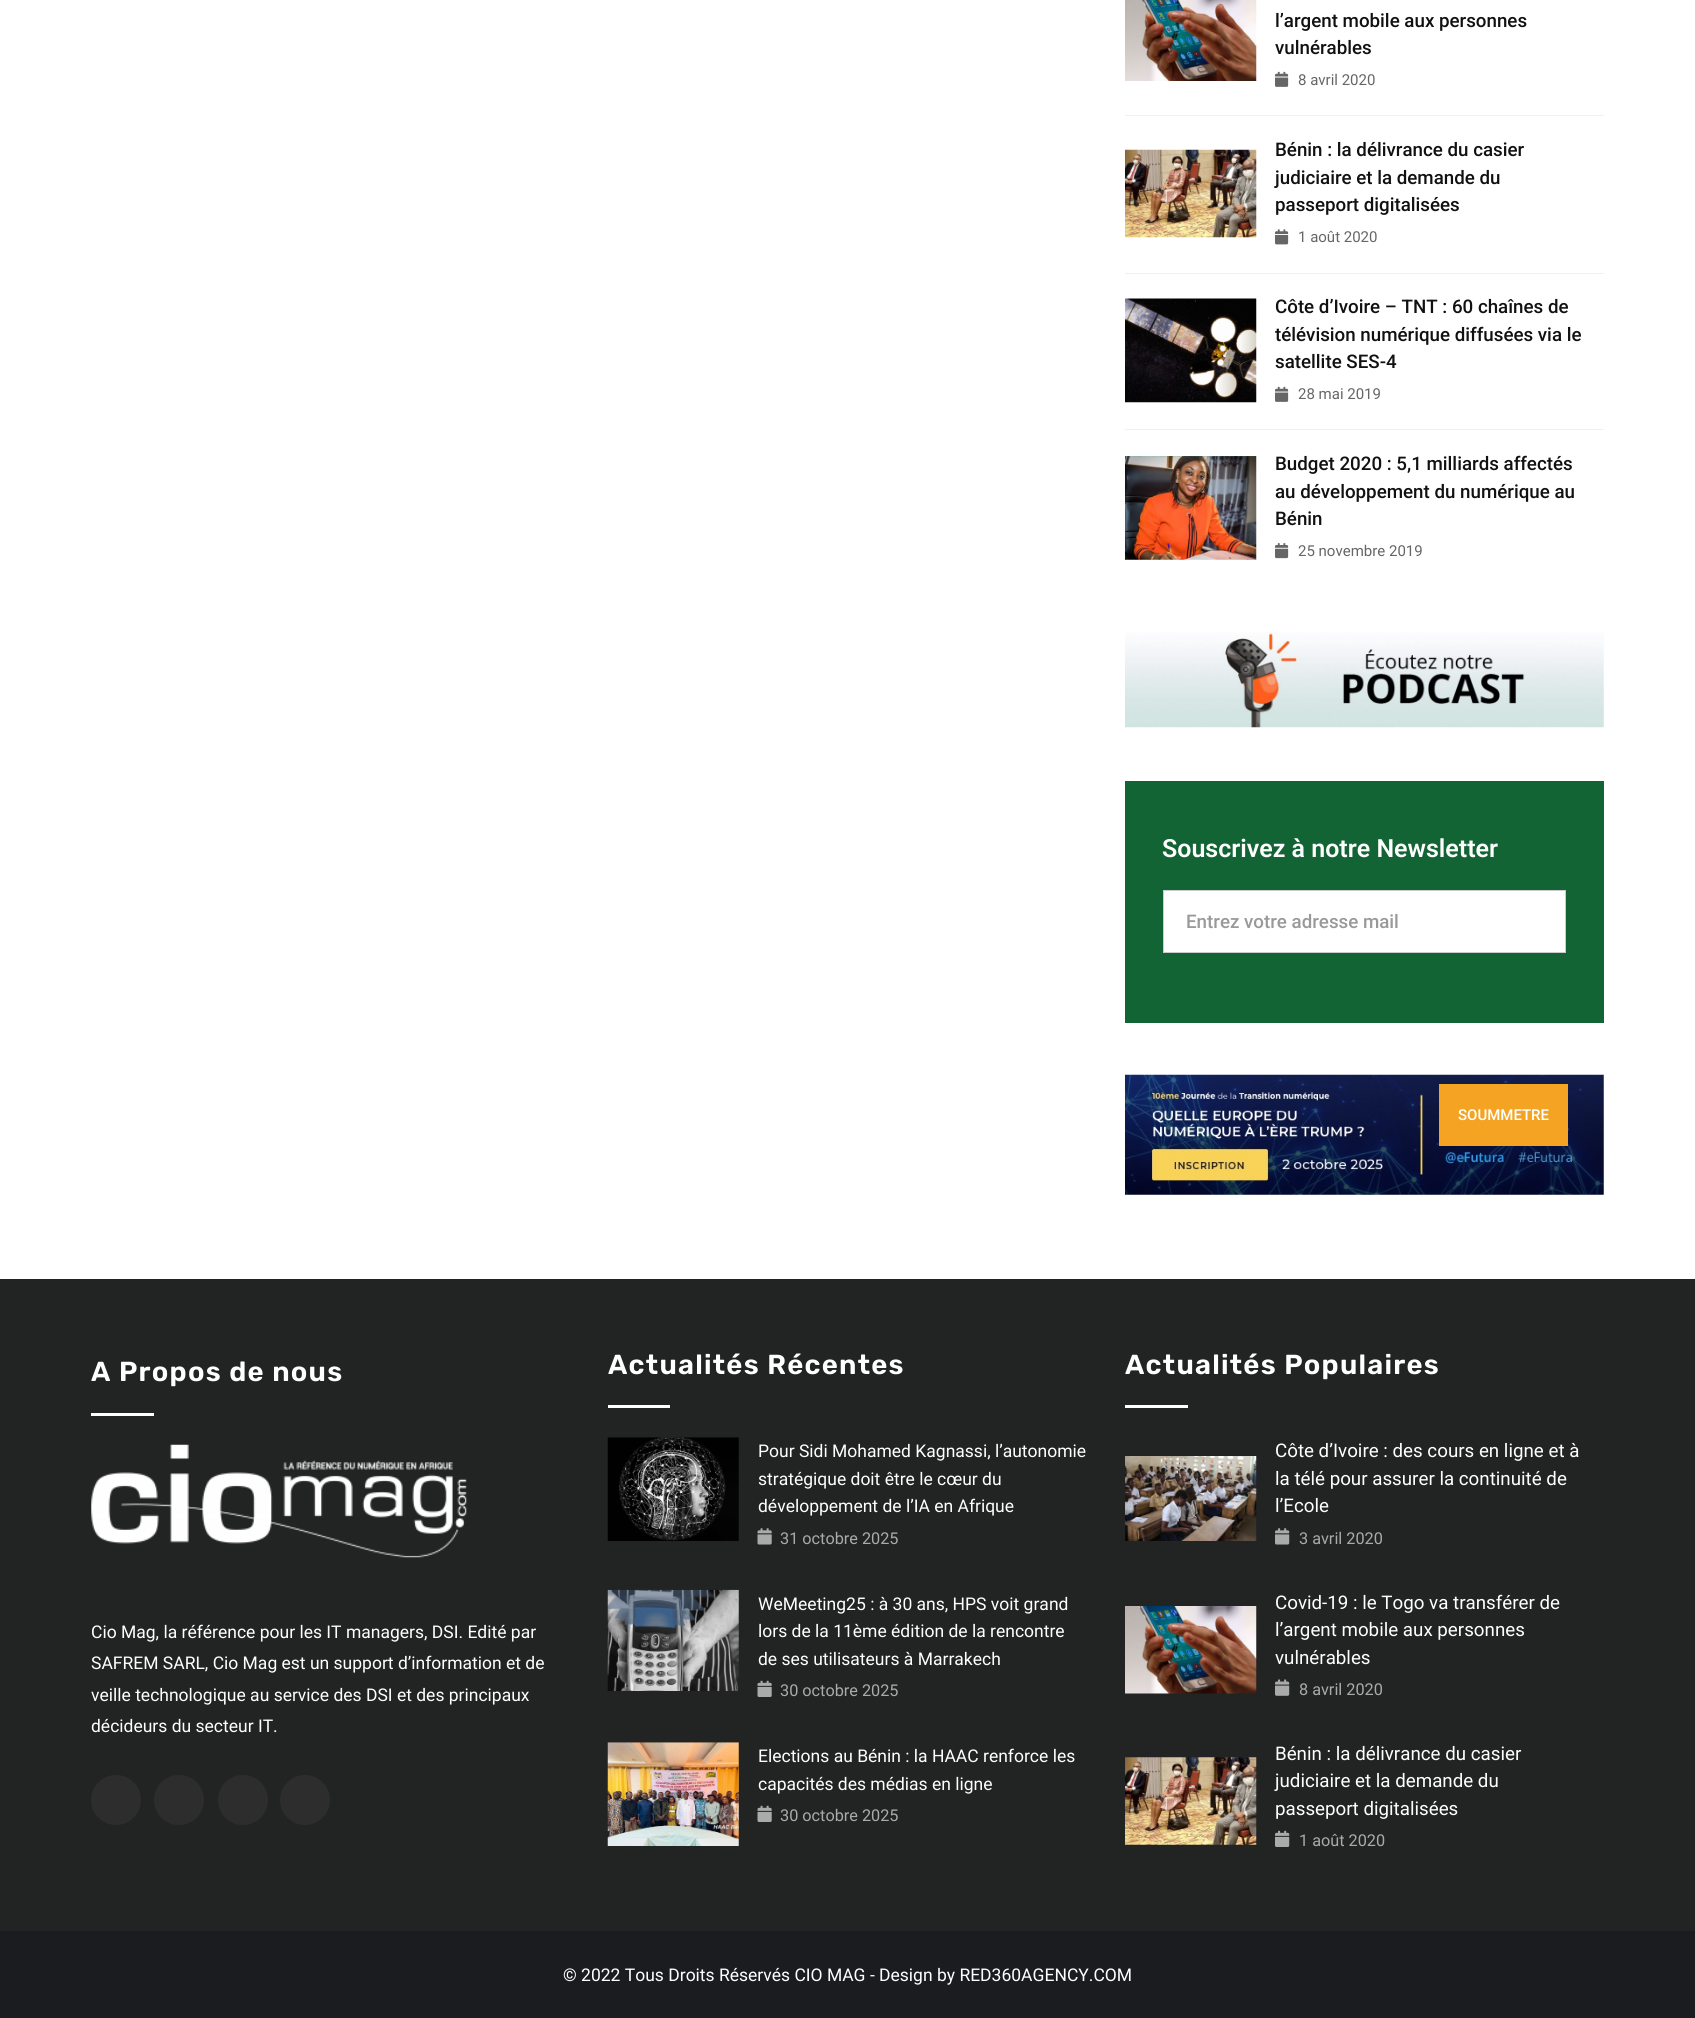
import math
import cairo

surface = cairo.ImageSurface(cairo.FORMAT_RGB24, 1695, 2018)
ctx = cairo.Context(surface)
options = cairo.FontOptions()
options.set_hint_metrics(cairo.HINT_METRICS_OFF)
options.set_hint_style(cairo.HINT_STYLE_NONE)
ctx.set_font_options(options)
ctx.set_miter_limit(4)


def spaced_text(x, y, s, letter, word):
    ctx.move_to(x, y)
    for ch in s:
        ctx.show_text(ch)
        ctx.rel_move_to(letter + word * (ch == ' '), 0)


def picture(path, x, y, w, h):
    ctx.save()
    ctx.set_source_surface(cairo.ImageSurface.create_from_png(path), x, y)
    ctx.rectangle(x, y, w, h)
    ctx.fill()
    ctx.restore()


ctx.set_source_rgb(1, 1, 1)
ctx.paint()
picture("img1.png", 1125, 0, 132, 81)
ctx.select_font_face("Roboto Medium")
ctx.set_font_size(18.75)
ctx.set_source_rgb(0.067, 0.067, 0.067)
ctx.move_to(1275, 27)
ctx.show_text("l’argent mobile aux personnes")
ctx.move_to(1275, 54)
ctx.show_text("vulnérables")
picture("img2.png", 1275, 71, 14, 16)
ctx.select_font_face("Roboto")
ctx.set_font_size(15)
ctx.set_source_rgb(0.4, 0.4, 0.4)
ctx.move_to(1298, 85)
ctx.show_text("8 avril 2020")
ctx.set_source_rgb(0.941, 0.941, 0.941)
ctx.rectangle(1125, 115, 479, 1)
ctx.fill()
picture("img3.png", 1125, 149, 132, 89)
ctx.select_font_face("Roboto Medium")
ctx.set_font_size(18.75)
ctx.set_source_rgb(0.067, 0.067, 0.067)
ctx.move_to(1275, 156)
ctx.show_text("Bénin : la délivrance du casier")
ctx.move_to(1275, 184)
ctx.show_text("judiciaire et la demande du")
ctx.move_to(1275, 211)
ctx.show_text("passeport digitalisées")
picture("img4.png", 1275, 229, 14, 16)
ctx.select_font_face("Roboto")
ctx.set_font_size(15)
ctx.set_source_rgb(0.4, 0.4, 0.4)
ctx.move_to(1298, 242)
ctx.show_text("1 août 2020")
ctx.set_source_rgb(0.941, 0.941, 0.941)
ctx.rectangle(1125, 273, 479, 1)
ctx.fill()
picture("img5.png", 1125, 298, 132, 105)
ctx.select_font_face("Roboto Medium")
ctx.set_font_size(18.75)
ctx.set_source_rgb(0.067, 0.067, 0.067)
ctx.move_to(1275, 313)
ctx.show_text("Côte d’Ivoire – TNT : 60 chaînes de")
ctx.move_to(1275, 341)
ctx.show_text("télévision numérique diffusées via le")
ctx.move_to(1275, 368)
ctx.show_text("satellite SES-4")
picture("img2.png", 1275, 386, 14, 16)
ctx.select_font_face("Roboto")
ctx.set_font_size(15)
ctx.set_source_rgb(0.4, 0.4, 0.4)
ctx.move_to(1298, 399)
ctx.show_text("28 mai 2019")
ctx.set_source_rgb(0.941, 0.941, 0.941)
ctx.rectangle(1125, 429, 479, 1)
ctx.fill()
picture("img6.png", 1125, 456, 132, 104)
ctx.select_font_face("Roboto Medium")
ctx.set_font_size(18.75)
ctx.set_source_rgb(0.067, 0.067, 0.067)
ctx.move_to(1275, 470)
ctx.show_text("Budget 2020 : 5,1 milliards affectés")
ctx.move_to(1275, 498)
ctx.show_text("au développement du numérique au")
ctx.move_to(1275, 525)
ctx.show_text("Bénin")
picture("img7.png", 1275, 543, 14, 16)
ctx.select_font_face("Roboto")
ctx.set_font_size(15)
ctx.set_source_rgb(0.4, 0.4, 0.4)
ctx.move_to(1298, 556)
ctx.show_text("25 novembre 2019")
picture("img8.png", 1125, 632, 479, 96)
ctx.set_source_rgb(0.075, 0.392, 0.204)
ctx.rectangle(1125, 781, 479, 242)
ctx.fill()
ctx.select_font_face("Roboto SemiBold")
ctx.set_font_size(25)
ctx.set_source_rgb(1, 1, 1)
ctx.move_to(1162, 857)
ctx.show_text("Souscrivez à notre Newsletter")
ctx.rectangle(1163.5, 890.5, 402, 62)
ctx.fill_preserve()
ctx.set_source_rgb(0.8, 0.8, 0.8)
ctx.set_line_width(1)
ctx.stroke()
ctx.select_font_face("Roboto Medium")
ctx.set_font_size(18.75)
ctx.set_source_rgb(0.6, 0.6, 0.6)
ctx.move_to(1186, 928)
ctx.show_text("Entrez votre adresse mail")
picture("img9.png", 1125, 1074, 479, 121)
ctx.set_source_rgb(0.957, 0.643, 0.133)
ctx.rectangle(1439, 1084, 129, 62)
ctx.fill()
ctx.set_font_size(15)
ctx.set_source_rgb(1, 1, 1)
ctx.move_to(1458, 1120)
ctx.show_text("SOUMMETRE")
ctx.set_source_rgb(0.133, 0.137, 0.137)
ctx.rectangle(0, 1279, 1695, 652)
ctx.fill()
ctx.select_font_face("Rubik SemiBold")
ctx.set_font_size(27.5)
ctx.set_source_rgb(1, 1, 1)
spaced_text(91, 1381, "A Propos de nous", 1.25, 0)
ctx.rectangle(91, 1413, 63, 3)
ctx.fill()
picture("img10.png", 91, 1444, 376, 114)
ctx.select_font_face("Roboto")
ctx.set_font_size(17.5)
ctx.move_to(91, 1638)
ctx.show_text("Cio Mag, la référence pour les IT managers, DSI. Edité par")
ctx.move_to(91, 1669)
ctx.show_text("SAFREM SARL, Cio Mag est un support d’information et de")
ctx.move_to(91, 1701)
ctx.show_text("veille technologique au service des DSI et des principaux")
ctx.move_to(91, 1732)
ctx.show_text("décideurs du secteur IT.")
ctx.set_source_rgb(0.176, 0.176, 0.176)
ctx.new_path()
ctx.arc(116, 1800, 25, 0, 2 * math.pi)
ctx.fill()
ctx.arc(179, 1800, 25, 0, 2 * math.pi)
ctx.fill()
ctx.arc(243, 1800, 25, 0, 2 * math.pi)
ctx.fill()
ctx.arc(305, 1800, 25, 0, 2 * math.pi)
ctx.fill()
ctx.select_font_face("Rubik SemiBold")
ctx.set_font_size(27.5)
ctx.set_source_rgb(1, 1, 1)
spaced_text(608, 1374, "Actualités Récentes", 1.25, 0)
ctx.rectangle(608, 1405, 62, 3)
ctx.fill()
picture("img11.png", 607, 1437, 132, 104)
ctx.select_font_face("Roboto")
ctx.set_font_size(17.5)
ctx.move_to(758, 1457)
ctx.show_text("Pour Sidi Mohamed Kagnassi, l’autonomie")
ctx.move_to(758, 1485)
ctx.show_text("stratégique doit être le cœur du")
ctx.move_to(758, 1512)
ctx.show_text("développement de l’IA en Afrique")
picture("img12.png", 757, 1528, 15, 17)
ctx.set_font_size(16.25)
ctx.set_source_rgb(0.667, 0.667, 0.667)
ctx.move_to(780, 1544)
ctx.show_text("31 octobre 2025")
picture("img13.png", 607, 1589, 132, 102)
ctx.set_font_size(17.5)
ctx.set_source_rgb(1, 1, 1)
ctx.move_to(758, 1610)
ctx.show_text("WeMeeting25 : à 30 ans, HPS voit grand")
ctx.move_to(758, 1637)
ctx.show_text("lors de la 11ème édition de la rencontre")
ctx.move_to(758, 1665)
ctx.show_text("de ses utilisateurs à Marrakech")
picture("img14.png", 757, 1680, 15, 17)
ctx.set_font_size(16.25)
ctx.set_source_rgb(0.667, 0.667, 0.667)
ctx.move_to(780, 1696)
ctx.show_text("30 octobre 2025")
picture("img15.png", 607, 1742, 132, 104)
ctx.set_font_size(17.5)
ctx.set_source_rgb(1, 1, 1)
ctx.move_to(758, 1762)
ctx.show_text("Elections au Bénin : la HAAC renforce les")
ctx.move_to(758, 1790)
ctx.show_text("capacités des médias en ligne")
picture("img14.png", 757, 1805, 15, 17)
ctx.set_font_size(16.25)
ctx.set_source_rgb(0.667, 0.667, 0.667)
ctx.move_to(780, 1821)
ctx.show_text("30 octobre 2025")
ctx.select_font_face("Rubik SemiBold")
ctx.set_font_size(27.5)
ctx.set_source_rgb(1, 1, 1)
spaced_text(1125, 1374, "Actualités Populaires", 1.25, 0)
ctx.rectangle(1125, 1405, 63, 3)
ctx.fill()
picture("img16.png", 1125, 1456, 132, 85)
ctx.select_font_face("Roboto")
ctx.set_font_size(18.75)
ctx.move_to(1275, 1457)
ctx.show_text("Côte d’Ivoire : des cours en ligne et à")
ctx.move_to(1275, 1485)
ctx.show_text("la télé pour assurer la continuité de")
ctx.move_to(1275, 1512)
ctx.show_text("l’Ecole")
picture("img17.png", 1275, 1528, 15, 17)
ctx.set_font_size(16.25)
ctx.set_source_rgb(0.667, 0.667, 0.667)
ctx.move_to(1299, 1544)
ctx.show_text("3 avril 2020")
picture("img18.png", 1125, 1606, 132, 88)
ctx.set_font_size(18.75)
ctx.set_source_rgb(1, 1, 1)
ctx.move_to(1275, 1609)
ctx.show_text("Covid-19 : le Togo va transférer de")
ctx.move_to(1275, 1636)
ctx.show_text("l’argent mobile aux personnes")
ctx.move_to(1275, 1664)
ctx.show_text("vulnérables")
picture("img19.png", 1275, 1679, 15, 17)
ctx.set_font_size(16.25)
ctx.set_source_rgb(0.667, 0.667, 0.667)
ctx.move_to(1299, 1695)
ctx.show_text("8 avril 2020")
picture("img20.png", 1125, 1757, 132, 88)
ctx.set_font_size(18.75)
ctx.set_source_rgb(1, 1, 1)
ctx.move_to(1275, 1760)
ctx.show_text("Bénin : la délivrance du casier")
ctx.move_to(1275, 1787)
ctx.show_text("judiciaire et la demande du")
ctx.move_to(1275, 1815)
ctx.show_text("passeport digitalisées")
picture("img21.png", 1275, 1830, 15, 17)
ctx.set_font_size(16.25)
ctx.set_source_rgb(0.667, 0.667, 0.667)
ctx.move_to(1299, 1846)
ctx.show_text("1 août 2020")
ctx.set_source_rgb(0.106, 0.11, 0.122)
ctx.rectangle(0, 1931, 1695, 87)
ctx.fill()
ctx.set_font_size(17.5)
ctx.set_source_rgb(1, 1, 1)
ctx.move_to(563, 1981)
ctx.show_text("© 2022 Tous Droits Réservés CIO MAG - Design by RED360AGENCY.COM")
surface.write_to_png("page.png")
